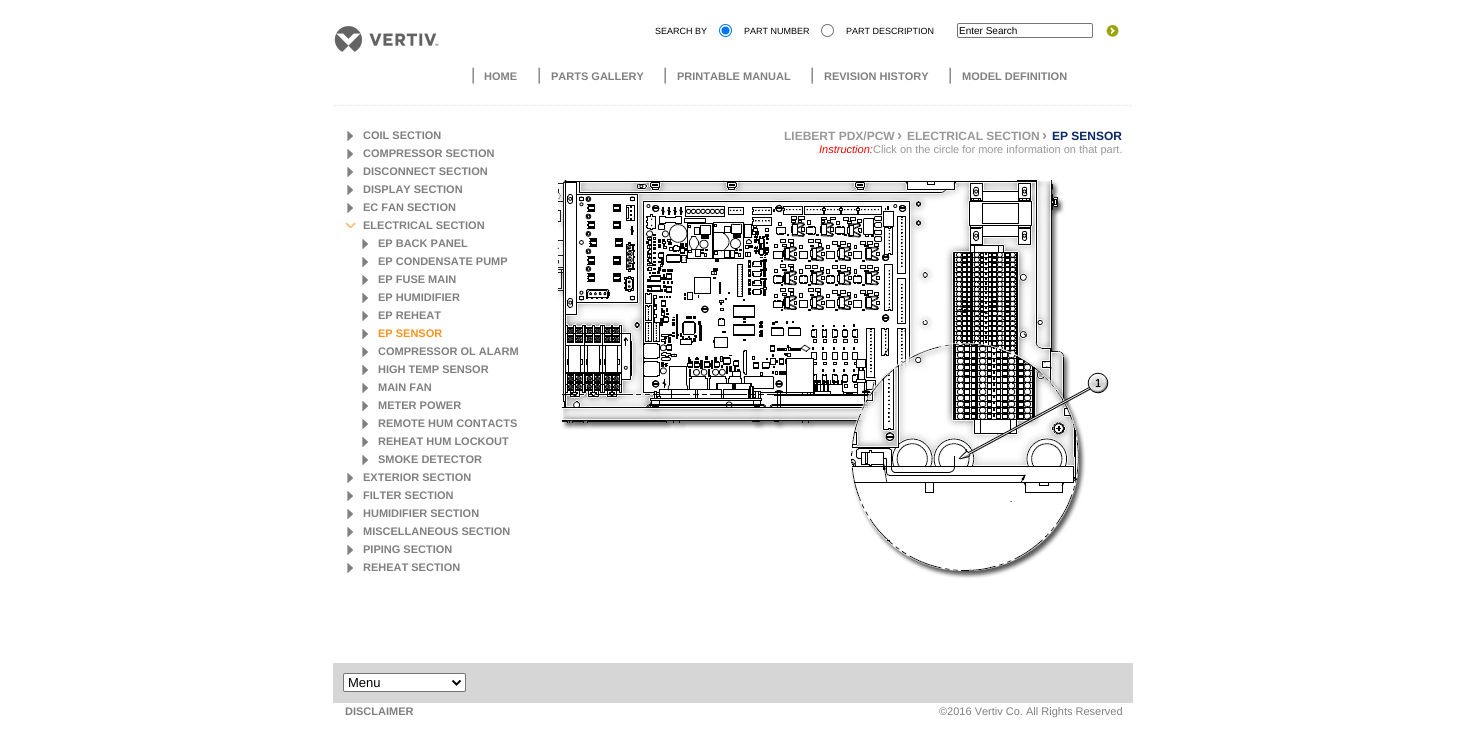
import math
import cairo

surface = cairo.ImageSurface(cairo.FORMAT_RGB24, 1465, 745)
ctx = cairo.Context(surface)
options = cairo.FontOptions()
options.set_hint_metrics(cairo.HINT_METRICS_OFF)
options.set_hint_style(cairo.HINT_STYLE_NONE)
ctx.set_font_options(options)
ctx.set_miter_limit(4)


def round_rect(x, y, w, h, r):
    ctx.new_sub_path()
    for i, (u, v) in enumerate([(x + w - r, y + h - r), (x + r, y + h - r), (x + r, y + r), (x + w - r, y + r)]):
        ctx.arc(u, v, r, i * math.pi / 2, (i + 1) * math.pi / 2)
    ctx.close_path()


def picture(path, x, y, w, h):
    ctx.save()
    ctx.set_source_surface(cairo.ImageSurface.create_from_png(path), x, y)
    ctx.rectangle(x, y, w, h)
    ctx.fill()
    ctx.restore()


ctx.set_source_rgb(1, 1, 1)
ctx.paint()
ctx.select_font_face("Liberation Sans")
ctx.set_font_size(9)
ctx.set_source_rgb(0, 0, 0)
ctx.move_to(655, 34)
ctx.show_text("SEARCH BY")
ctx.new_path()
ctx.arc(725.5, 30.5, 6, 0, 2 * math.pi)
ctx.set_source_rgb(0, 0.459, 1)
ctx.set_line_width(1)
ctx.stroke()
ctx.arc(725.5, 30.5, 4, 0, 2 * math.pi)
ctx.fill()
ctx.set_source_rgb(0, 0, 0)
ctx.move_to(744, 34)
ctx.show_text("PART NUMBER")
ctx.new_path()
ctx.arc(827.5, 30.5, 6, 0, 2 * math.pi)
ctx.set_source_rgb(0.463, 0.463, 0.463)
ctx.stroke()
ctx.set_source_rgb(0, 0, 0)
ctx.move_to(846, 34)
ctx.show_text("PART DESCRIPTION")
round_rect(957.5, 23.5, 135, 14, 1.5)
ctx.set_source_rgb(0.463, 0.463, 0.463)
ctx.stroke()
ctx.set_font_size(10)
ctx.set_source_rgb(0, 0, 0)
ctx.move_to(959, 34)
ctx.show_text("Enter Search")
picture("img1.png", 1106, 24, 13, 13)
ctx.new_path()
ctx.move_to(333, 105.5)
ctx.line_to(1133, 105.5)
ctx.set_source_rgb(0.894, 0.894, 0.894)
ctx.set_dash([1, 1])
ctx.stroke()
picture("img2.png", 334, 26, 105, 26)
ctx.set_font_size(17)
ctx.set_source_rgb(0.502, 0.502, 0.502)
ctx.move_to(471, 80)
ctx.show_text("|")
ctx.select_font_face("Liberation Sans", cairo.FONT_SLANT_NORMAL, cairo.FONT_WEIGHT_BOLD)
ctx.set_font_size(11)
ctx.move_to(484, 80)
ctx.show_text("HOME")
ctx.select_font_face("Liberation Sans")
ctx.set_font_size(17)
ctx.move_to(537, 80)
ctx.show_text("|")
ctx.select_font_face("Liberation Sans", cairo.FONT_SLANT_NORMAL, cairo.FONT_WEIGHT_BOLD)
ctx.set_font_size(11)
ctx.move_to(551, 80)
ctx.show_text("PARTS GALLERY")
ctx.select_font_face("Liberation Sans")
ctx.set_font_size(17)
ctx.move_to(663, 80)
ctx.show_text("|")
ctx.select_font_face("Liberation Sans", cairo.FONT_SLANT_NORMAL, cairo.FONT_WEIGHT_BOLD)
ctx.set_font_size(11)
ctx.move_to(677, 80)
ctx.show_text("PRINTABLE MANUAL")
ctx.select_font_face("Liberation Sans")
ctx.set_font_size(17)
ctx.move_to(810, 80)
ctx.show_text("|")
ctx.select_font_face("Liberation Sans", cairo.FONT_SLANT_NORMAL, cairo.FONT_WEIGHT_BOLD)
ctx.set_font_size(11)
ctx.move_to(824, 80)
ctx.show_text("REVISION HISTORY")
ctx.select_font_face("Liberation Sans")
ctx.set_font_size(17)
ctx.move_to(948, 80)
ctx.show_text("|")
ctx.select_font_face("Liberation Sans", cairo.FONT_SLANT_NORMAL, cairo.FONT_WEIGHT_BOLD)
ctx.set_font_size(11)
ctx.move_to(962, 80)
ctx.show_text("MODEL DEFINITION")
picture("img3.png", 347, 131, 6, 10)
ctx.move_to(363, 139)
ctx.show_text("COIL SECTION")
picture("img3.png", 347, 149, 6, 10)
ctx.move_to(363, 157)
ctx.show_text("COMPRESSOR SECTION")
picture("img3.png", 347, 167, 6, 10)
ctx.move_to(363, 175)
ctx.show_text("DISCONNECT SECTION")
picture("img3.png", 347, 185, 6, 10)
ctx.move_to(363, 193)
ctx.show_text("DISPLAY SECTION")
picture("img3.png", 347, 203, 6, 10)
ctx.move_to(363, 211)
ctx.show_text("EC FAN SECTION")
picture("img4.png", 345, 223, 11, 5)
ctx.move_to(363, 229)
ctx.show_text("ELECTRICAL SECTION")
picture("img3.png", 362, 239, 6, 10)
ctx.move_to(378, 247)
ctx.show_text("EP BACK PANEL")
picture("img3.png", 362, 257, 6, 10)
ctx.move_to(378, 265)
ctx.show_text("EP CONDENSATE PUMP")
picture("img3.png", 362, 275, 6, 10)
ctx.move_to(378, 283)
ctx.show_text("EP FUSE MAIN")
picture("img3.png", 362, 293, 6, 10)
ctx.move_to(378, 301)
ctx.show_text("EP HUMIDIFIER")
picture("img3.png", 362, 311, 6, 10)
ctx.move_to(378, 319)
ctx.show_text("EP REHEAT")
picture("img3.png", 362, 329, 6, 10)
ctx.set_source_rgb(0.969, 0.58, 0.114)
ctx.move_to(378, 337)
ctx.show_text("EP SENSOR")
picture("img3.png", 362, 347, 6, 10)
ctx.set_source_rgb(0.502, 0.502, 0.502)
ctx.move_to(378, 355)
ctx.show_text("COMPRESSOR OL ALARM")
picture("img3.png", 362, 365, 6, 10)
ctx.move_to(378, 373)
ctx.show_text("HIGH TEMP SENSOR")
picture("img3.png", 362, 383, 6, 10)
ctx.move_to(378, 391)
ctx.show_text("MAIN FAN")
picture("img3.png", 362, 401, 6, 10)
ctx.move_to(378, 409)
ctx.show_text("METER POWER")
picture("img3.png", 362, 419, 6, 10)
ctx.move_to(378, 427)
ctx.show_text("REMOTE HUM CONTACTS")
picture("img3.png", 362, 437, 6, 10)
ctx.move_to(378, 445)
ctx.show_text("REHEAT HUM LOCKOUT")
picture("img3.png", 362, 455, 6, 10)
ctx.move_to(378, 463)
ctx.show_text("SMOKE DETECTOR")
picture("img3.png", 347, 473, 6, 10)
ctx.move_to(363, 481)
ctx.show_text("EXTERIOR SECTION")
picture("img3.png", 347, 491, 6, 10)
ctx.move_to(363, 499)
ctx.show_text("FILTER SECTION")
picture("img3.png", 347, 509, 6, 10)
ctx.move_to(363, 517)
ctx.show_text("HUMIDIFIER SECTION")
picture("img3.png", 347, 527, 6, 10)
ctx.move_to(363, 535)
ctx.show_text("MISCELLANEOUS SECTION")
picture("img3.png", 347, 545, 6, 10)
ctx.move_to(363, 553)
ctx.show_text("PIPING SECTION")
picture("img3.png", 347, 563, 6, 10)
ctx.move_to(363, 571)
ctx.show_text("REHEAT SECTION")
ctx.set_font_size(12)
ctx.set_source_rgb(0.6, 0.6, 0.6)
ctx.move_to(784, 140)
ctx.show_text("LIEBERT PDX/PCW")
ctx.set_font_size(15)
ctx.move_to(897, 140)
ctx.show_text("›")
ctx.set_font_size(12)
ctx.move_to(907, 140)
ctx.show_text("ELECTRICAL SECTION")
ctx.set_font_size(15)
ctx.move_to(1042, 140)
ctx.show_text("›")
ctx.set_font_size(12)
ctx.set_source_rgb(0.035, 0.157, 0.412)
ctx.move_to(1052, 140)
ctx.show_text("EP SENSOR")
ctx.select_font_face("Liberation Sans", cairo.FONT_SLANT_ITALIC)
ctx.set_font_size(11)
ctx.set_source_rgb(1, 0, 0)
ctx.move_to(819, 153)
ctx.show_text("Instruction:")
ctx.select_font_face("Liberation Sans")
ctx.set_source_rgb(0.6, 0.6, 0.6)
ctx.move_to(873, 153)
ctx.show_text("Click on the circle for more information on that part.")
picture("img5.png", 557, 180, 552, 399)
ctx.set_source_rgb(0.839, 0.839, 0.839)
ctx.rectangle(333, 663, 800, 40)
ctx.fill()
ctx.set_source_rgb(1, 1, 1)
round_rect(343.5, 673.5, 122, 18, 1.5)
ctx.fill_preserve()
ctx.set_source_rgb(0.463, 0.463, 0.463)
ctx.set_dash([])
ctx.stroke()
ctx.new_path()
ctx.move_to(452.5, 680.5)
ctx.line_to(456.5, 684.5)
ctx.line_to(460.5, 680.5)
ctx.set_source_rgb(0, 0, 0)
ctx.set_line_width(2)
ctx.stroke()
ctx.set_font_size(13)
ctx.move_to(348, 687)
ctx.show_text("Menu")
ctx.select_font_face("Liberation Sans", cairo.FONT_SLANT_NORMAL, cairo.FONT_WEIGHT_BOLD)
ctx.set_font_size(11)
ctx.set_source_rgb(0.502, 0.502, 0.502)
ctx.move_to(345, 715)
ctx.show_text("DISCLAIMER")
ctx.select_font_face("Liberation Sans")
ctx.move_to(939, 715)
ctx.show_text("©2016 Vertiv Co. All Rights Reserved")
surface.write_to_png("page.png")
